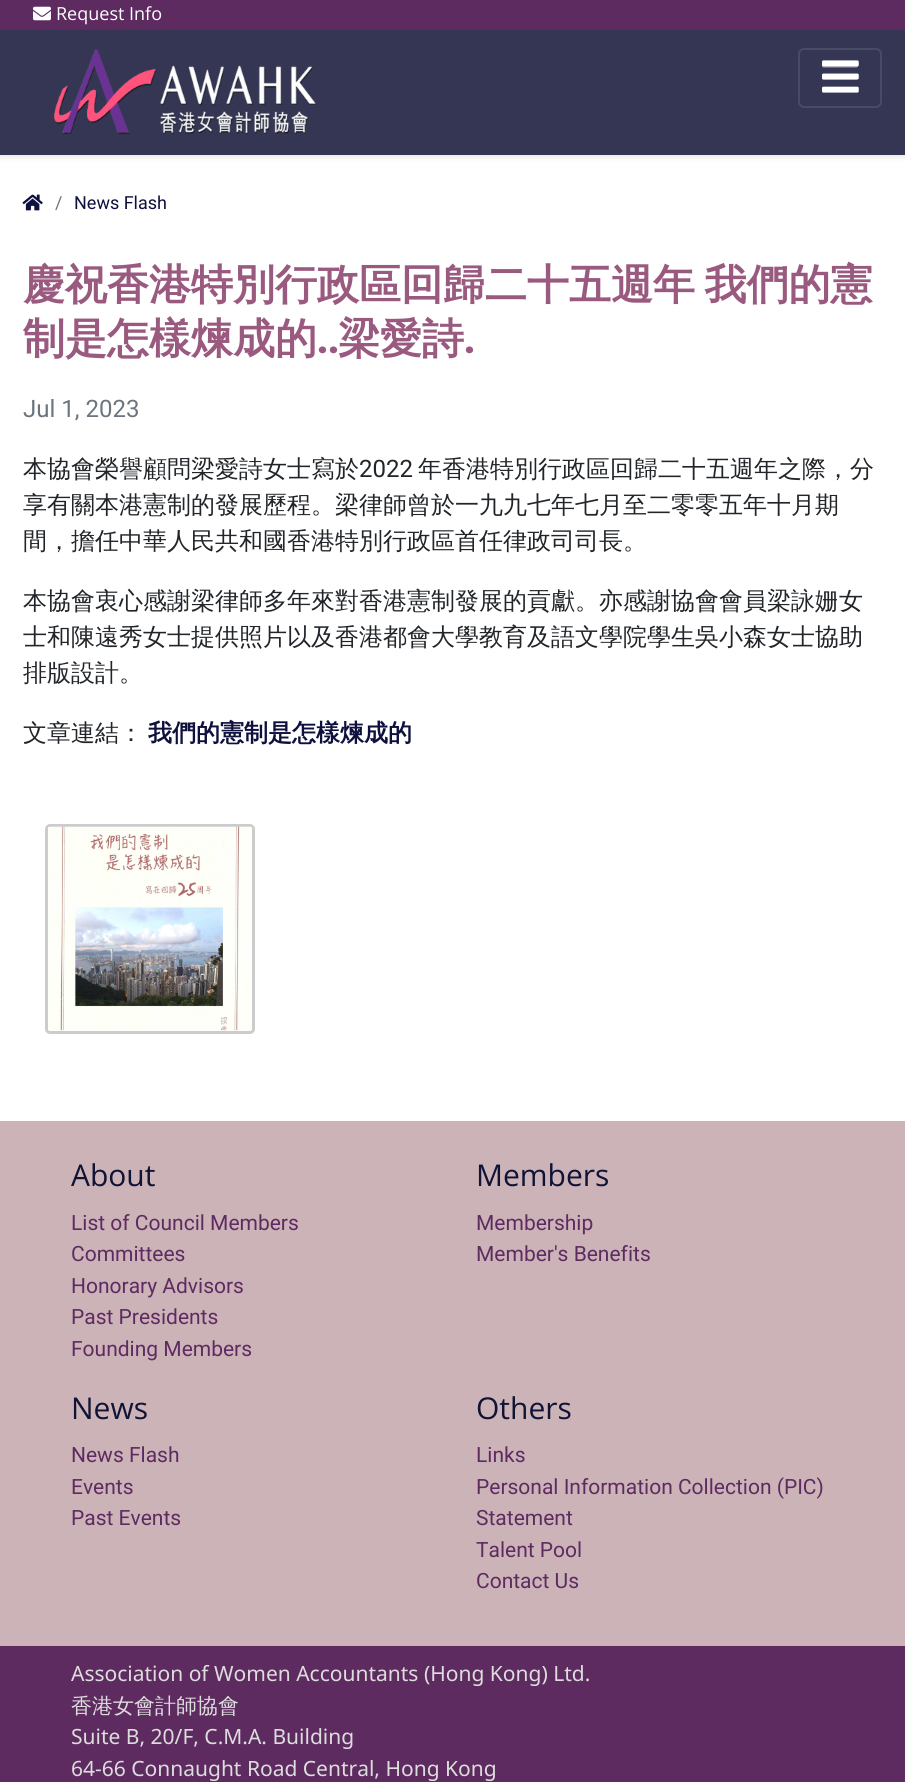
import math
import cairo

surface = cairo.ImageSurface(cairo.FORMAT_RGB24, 905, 1782)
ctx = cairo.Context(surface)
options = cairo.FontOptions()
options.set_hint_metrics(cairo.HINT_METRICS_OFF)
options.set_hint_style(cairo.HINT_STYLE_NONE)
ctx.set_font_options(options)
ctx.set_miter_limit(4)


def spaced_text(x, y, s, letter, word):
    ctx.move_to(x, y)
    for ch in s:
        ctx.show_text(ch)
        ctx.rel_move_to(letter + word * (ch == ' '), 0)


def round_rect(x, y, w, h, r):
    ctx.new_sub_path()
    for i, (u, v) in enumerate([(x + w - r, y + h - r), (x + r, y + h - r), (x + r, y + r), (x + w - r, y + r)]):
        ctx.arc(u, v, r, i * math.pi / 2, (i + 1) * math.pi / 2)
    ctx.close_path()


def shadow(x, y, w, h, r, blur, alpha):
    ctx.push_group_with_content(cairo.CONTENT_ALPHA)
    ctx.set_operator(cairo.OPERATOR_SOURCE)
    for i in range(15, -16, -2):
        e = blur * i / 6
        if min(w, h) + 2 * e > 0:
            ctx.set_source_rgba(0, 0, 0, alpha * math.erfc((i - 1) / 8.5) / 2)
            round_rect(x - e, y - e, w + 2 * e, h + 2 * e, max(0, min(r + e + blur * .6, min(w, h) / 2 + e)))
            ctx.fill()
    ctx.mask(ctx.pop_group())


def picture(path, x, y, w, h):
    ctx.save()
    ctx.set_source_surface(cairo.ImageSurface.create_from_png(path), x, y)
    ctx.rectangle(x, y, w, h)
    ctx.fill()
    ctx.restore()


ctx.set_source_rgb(1, 1, 1)
ctx.paint()
ctx.save()
ctx.set_fill_rule(cairo.FILL_RULE_EVEN_ODD)
ctx.new_path()
ctx.move_to(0, 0)
ctx.line_to(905, 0)
ctx.line_to(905, 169)
ctx.line_to(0, 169)
ctx.close_path()
ctx.move_to(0, 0)
ctx.line_to(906, 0)
ctx.line_to(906, 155)
ctx.line_to(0, 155)
ctx.close_path()
ctx.clip()
ctx.set_source_rgb(0, 0, 0)
shadow(0, 2, 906, 154, 0, 4, 0.12)
ctx.restore()
ctx.set_source_rgba(0.067, 0.075, 0.208, 0.85)
ctx.rectangle(0, 30, 905, 125)
ctx.fill()
ctx.set_source_rgb(0.369, 0.169, 0.38)
ctx.rectangle(0, 0, 905, 30)
ctx.fill()
picture("img1.png", 33, 6, 18, 15)
ctx.select_font_face("Open Sans")
ctx.set_font_size(18)
ctx.set_source_rgb(1, 1, 1)
ctx.move_to(56, 20)
ctx.show_text("Request Info")
picture("img2.png", 54, 49, 262, 86)
round_rect(799, 49, 82, 58, 5)
ctx.set_source_rgb(0.286, 0.29, 0.392)
ctx.stroke()
ctx.new_path()
ctx.move_to(823.5, 66)
ctx.line_to(856.5, 66)
ctx.move_to(823.5, 78)
ctx.line_to(856.5, 78)
ctx.move_to(823.5, 90)
ctx.line_to(856.5, 90)
ctx.set_source_rgb(0.604, 0.608, 0.663)
ctx.set_line_width(3)
ctx.set_line_cap(cairo.LINE_CAP_ROUND)
ctx.stroke()
picture("img3.png", 822, 60, 37, 33)
picture("img4.png", 22, 194, 21, 17)
ctx.select_font_face("Roboto")
ctx.set_source_rgb(0.424, 0.459, 0.49)
ctx.move_to(55, 209)
ctx.show_text("/")
ctx.set_source_rgb(0.055, 0.063, 0.239)
ctx.move_to(74, 209)
ctx.show_text("News Flash")
ctx.select_font_face("WenQuanYi Zen Hei", cairo.FONT_SLANT_NORMAL, cairo.FONT_WEIGHT_BOLD)
ctx.set_font_size(42)
ctx.set_source_rgb(0.604, 0.353, 0.498)
spaced_text(23, 299, "慶祝香港特別行政區回歸二十五週年 我們的憲", 0, -3)
ctx.move_to(23, 353)
ctx.show_text("制是怎樣煉成的")
ctx.select_font_face("Poppins SemiBold")
ctx.move_to(317, 353)
ctx.show_text("..")
ctx.select_font_face("WenQuanYi Zen Hei", cairo.FONT_SLANT_NORMAL, cairo.FONT_WEIGHT_BOLD)
ctx.move_to(338, 353)
ctx.show_text("梁愛詩")
ctx.select_font_face("Poppins SemiBold")
ctx.move_to(464, 353)
ctx.show_text(".")
ctx.select_font_face("Roboto")
ctx.set_font_size(24)
ctx.set_source_rgb(0.424, 0.459, 0.49)
ctx.move_to(23, 417)
ctx.show_text("Jul 1, 2023")
ctx.select_font_face("WenQuanYi Zen Hei Medium")
ctx.set_source_rgb(0.129, 0.145, 0.161)
ctx.move_to(23, 477)
ctx.show_text("本協會榮譽顧問梁愛詩女士寫於")
ctx.select_font_face("Roboto")
ctx.move_to(359, 477)
ctx.show_text("2022")
ctx.select_font_face("WenQuanYi Zen Hei Medium")
ctx.move_to(418, 477)
ctx.show_text("年香港特別行政區回歸二十五週年之際，分")
ctx.move_to(23, 513)
ctx.show_text("享有關本港憲制的發展歷程。梁律師曾於一九九七年七月至二零零五年十月期")
ctx.move_to(23, 549)
ctx.show_text("間，擔任中華人民共和國香港特別行政區首任律政司司長。")
ctx.move_to(23, 609)
ctx.show_text("本協會衷心感謝梁律師多年來對香港憲制發展的貢獻。亦感謝協會會員梁詠姗女")
ctx.move_to(23, 645)
ctx.show_text("士和陳遠秀女士提供照片以及香港都會大學教育及語文學院學生吳小森女士協助")
ctx.move_to(23, 681)
ctx.show_text("排版設計。")
ctx.move_to(23, 741)
ctx.show_text("文章連結：")
ctx.select_font_face("WenQuanYi Zen Hei", cairo.FONT_SLANT_NORMAL, cairo.FONT_WEIGHT_BOLD)
ctx.set_source_rgb(0.055, 0.063, 0.239)
ctx.move_to(148, 741)
ctx.show_text("我們的憲制是怎樣煉成的")
round_rect(46.5, 825.5, 207, 207, 3.5)
ctx.set_source_rgb(0.8, 0.8, 0.8)
ctx.set_line_cap(cairo.LINE_CAP_BUTT)
ctx.stroke()
picture("img5.png", 48, 826, 204, 205)
ctx.set_source_rgb(0.8, 0.702, 0.722)
ctx.rectangle(0, 1121, 905, 525)
ctx.fill()
ctx.select_font_face("Open Sans")
ctx.set_font_size(30)
ctx.set_source_rgb(0.067, 0.075, 0.208)
ctx.move_to(71, 1186)
ctx.show_text("About")
ctx.select_font_face("Roboto")
ctx.set_font_size(21)
ctx.set_source_rgb(0.369, 0.169, 0.38)
ctx.move_to(71, 1230)
ctx.show_text("List of Council Members")
ctx.move_to(71, 1261)
ctx.show_text("Committees")
ctx.move_to(71, 1293)
ctx.show_text("Honorary Advisors")
ctx.move_to(71, 1324)
ctx.show_text("Past Presidents")
ctx.move_to(71, 1356)
ctx.show_text("Founding Members")
ctx.select_font_face("Open Sans")
ctx.set_font_size(30)
ctx.set_source_rgb(0.067, 0.075, 0.208)
ctx.move_to(476, 1186)
ctx.show_text("Members")
ctx.select_font_face("Roboto")
ctx.set_font_size(21)
ctx.set_source_rgb(0.369, 0.169, 0.38)
ctx.move_to(476, 1230)
ctx.show_text("Membership")
ctx.move_to(476, 1261)
ctx.show_text("Member's Benefits")
ctx.select_font_face("Open Sans")
ctx.set_font_size(30)
ctx.set_source_rgb(0.067, 0.075, 0.208)
ctx.move_to(71, 1419)
ctx.show_text("News")
ctx.select_font_face("Roboto")
ctx.set_font_size(21)
ctx.set_source_rgb(0.369, 0.169, 0.38)
ctx.move_to(71, 1462)
ctx.show_text("News Flash")
ctx.move_to(71, 1494)
ctx.show_text("Events")
ctx.move_to(71, 1525)
ctx.show_text("Past Events")
ctx.select_font_face("Open Sans")
ctx.set_font_size(30)
ctx.set_source_rgb(0.067, 0.075, 0.208)
ctx.move_to(476, 1419)
ctx.show_text("Others")
ctx.select_font_face("Roboto")
ctx.set_font_size(21)
ctx.set_source_rgb(0.369, 0.169, 0.38)
ctx.move_to(476, 1462)
ctx.show_text("Links")
ctx.move_to(476, 1494)
ctx.show_text("Personal Information Collection (PIC)")
ctx.move_to(476, 1525)
ctx.show_text("Statement")
ctx.move_to(476, 1557)
ctx.show_text("Talent Pool")
ctx.move_to(476, 1588)
ctx.show_text("Contact Us")
ctx.rectangle(0, 1646, 905, 136)
ctx.fill()
ctx.select_font_face("Noto Sans")
ctx.set_source_rgb(0.867, 0.867, 0.867)
ctx.move_to(71, 1681)
ctx.show_text("Association of Women Accountants (Hong Kong) Ltd.")
ctx.select_font_face("WenQuanYi Zen Hei Medium")
ctx.move_to(71, 1713)
ctx.show_text("香港女會計師協會")
ctx.select_font_face("Noto Sans")
ctx.move_to(71, 1744)
ctx.show_text("Suite B, 20/F, C.M.A. Building")
ctx.move_to(71, 1776)
ctx.show_text("64-66 Connaught Road Central, Hong Kong")
surface.write_to_png("page.png")
